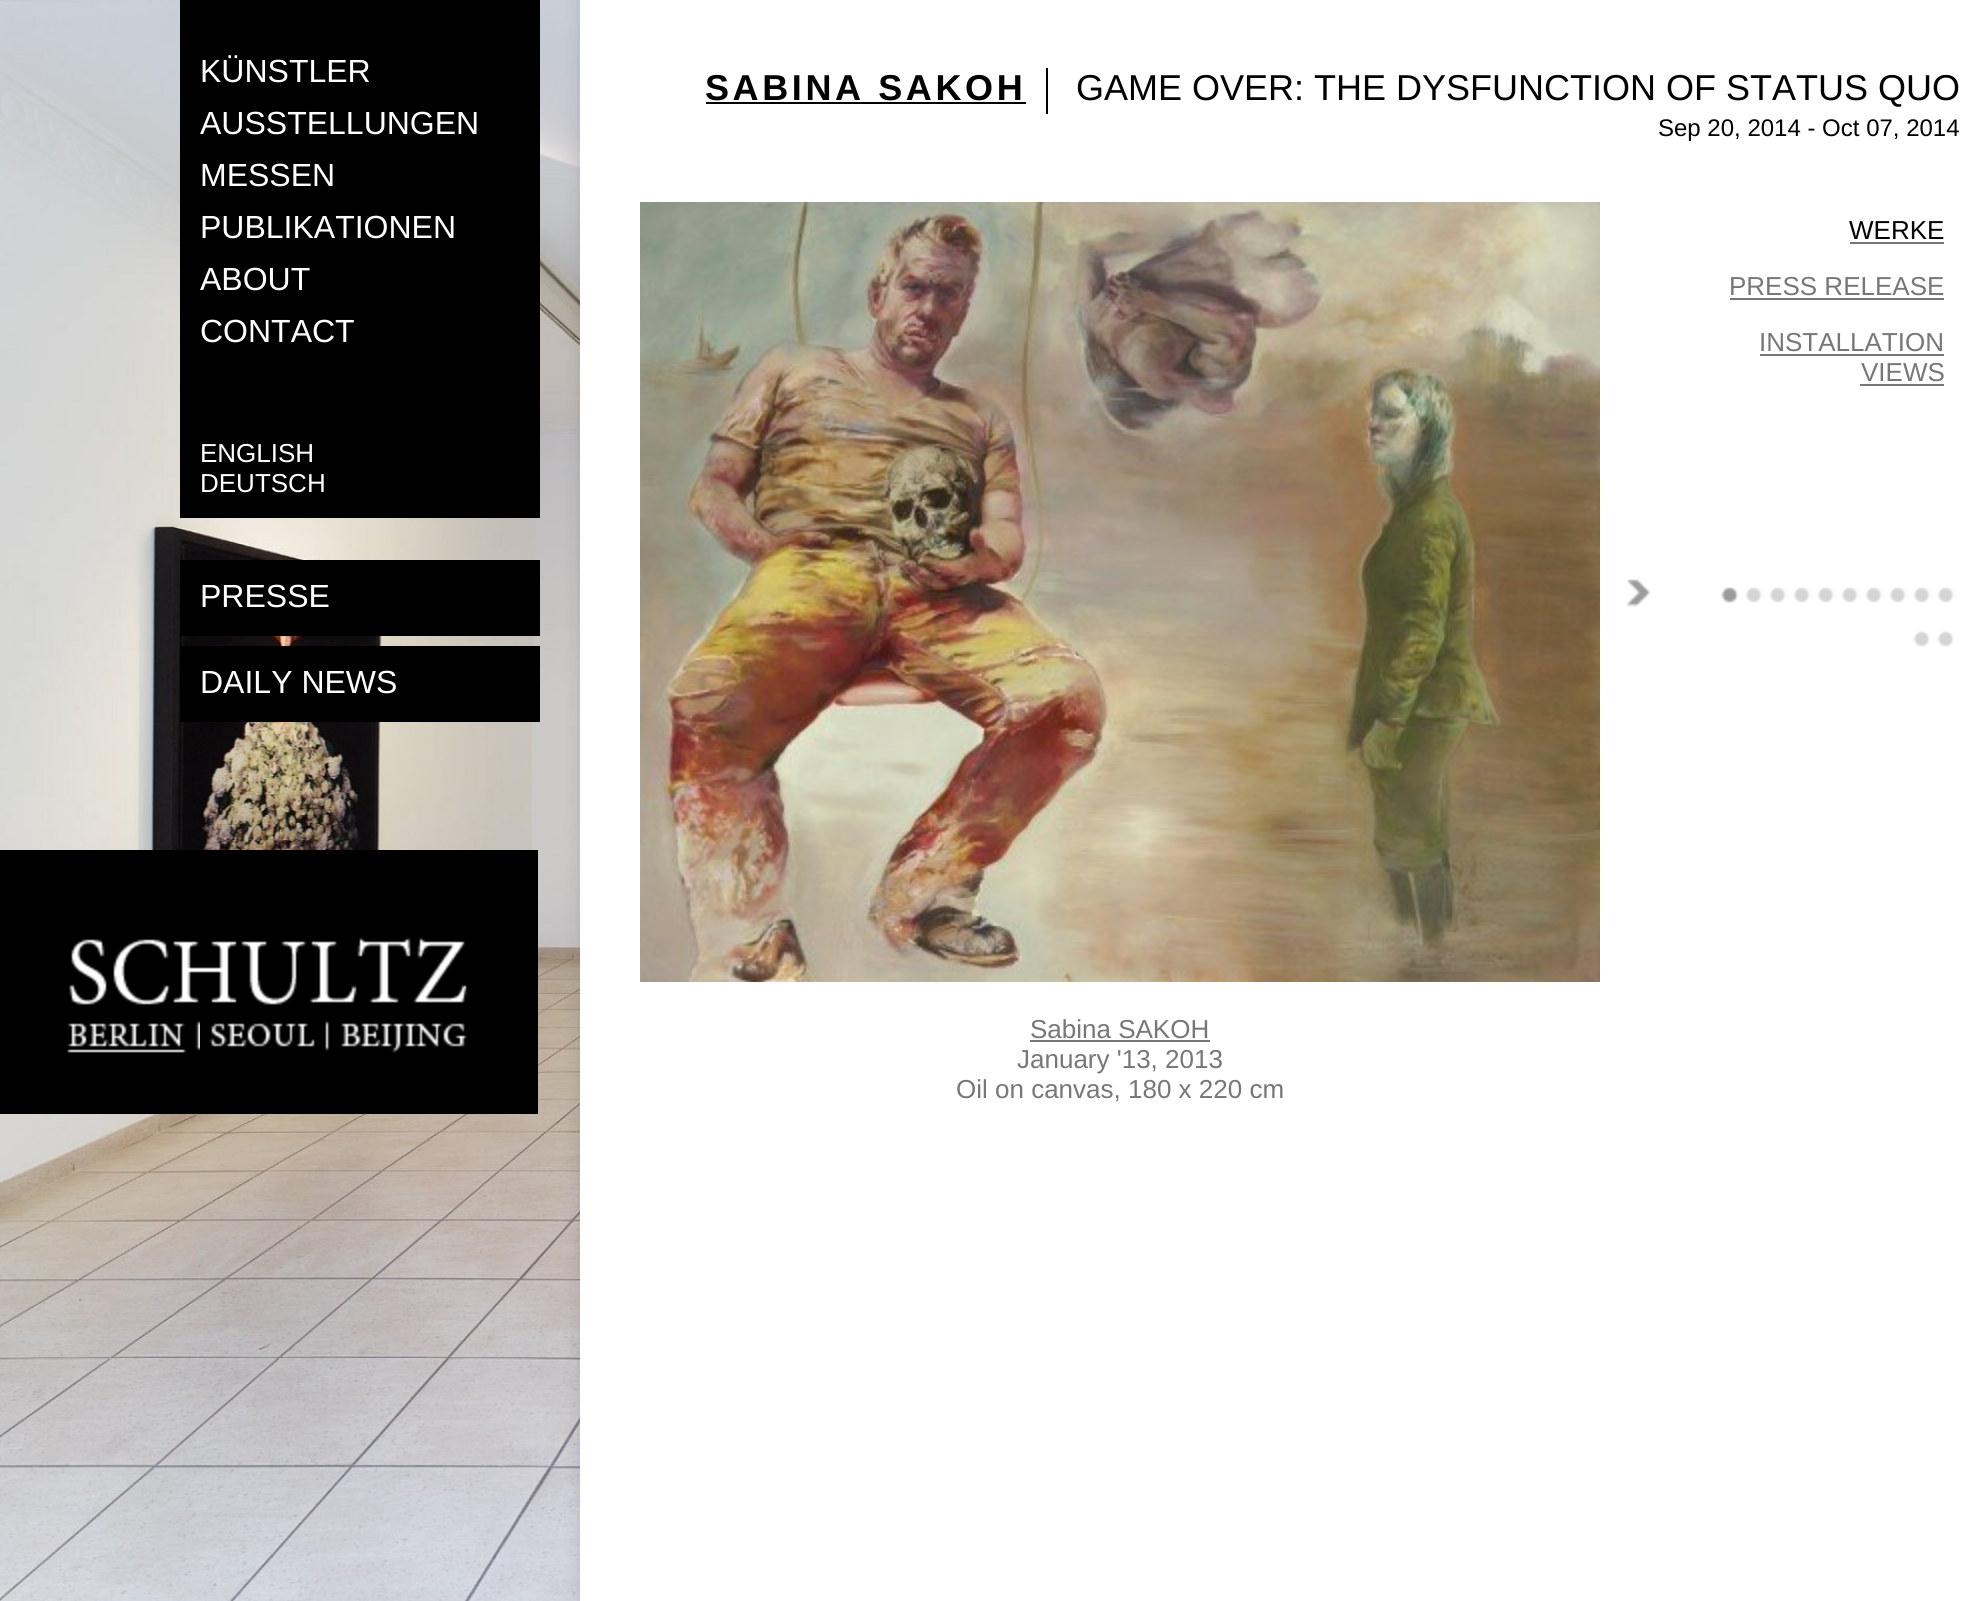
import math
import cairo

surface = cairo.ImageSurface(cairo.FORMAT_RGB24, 1977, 1601)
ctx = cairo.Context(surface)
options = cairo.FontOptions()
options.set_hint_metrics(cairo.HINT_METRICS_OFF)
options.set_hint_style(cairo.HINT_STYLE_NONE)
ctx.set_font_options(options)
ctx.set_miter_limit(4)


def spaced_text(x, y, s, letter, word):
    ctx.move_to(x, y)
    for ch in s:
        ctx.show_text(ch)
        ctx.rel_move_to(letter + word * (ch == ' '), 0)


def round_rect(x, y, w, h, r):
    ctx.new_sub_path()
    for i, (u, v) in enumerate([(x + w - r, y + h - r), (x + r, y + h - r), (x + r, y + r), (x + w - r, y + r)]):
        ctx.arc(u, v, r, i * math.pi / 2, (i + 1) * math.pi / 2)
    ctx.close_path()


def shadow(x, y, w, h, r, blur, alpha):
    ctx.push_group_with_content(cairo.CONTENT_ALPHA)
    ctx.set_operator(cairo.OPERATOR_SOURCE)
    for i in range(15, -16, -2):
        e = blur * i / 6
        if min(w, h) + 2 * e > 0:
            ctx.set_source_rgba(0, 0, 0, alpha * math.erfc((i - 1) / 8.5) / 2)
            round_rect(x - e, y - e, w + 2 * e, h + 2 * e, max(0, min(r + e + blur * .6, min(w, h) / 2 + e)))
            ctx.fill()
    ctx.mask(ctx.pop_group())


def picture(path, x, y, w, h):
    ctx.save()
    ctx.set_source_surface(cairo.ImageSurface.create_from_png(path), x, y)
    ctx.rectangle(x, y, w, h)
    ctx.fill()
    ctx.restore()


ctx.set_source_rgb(1, 1, 1)
ctx.paint()
picture("img1.png", 0, 0, 580, 1601)
ctx.set_source_rgb(0, 0, 0)
ctx.rectangle(180, 0, 360, 518)
ctx.fill()
ctx.select_font_face("Liberation Sans")
ctx.set_font_size(32)
ctx.set_source_rgb(1, 1, 1)
ctx.move_to(200, 82)
ctx.show_text("KÜNSTLER")
ctx.move_to(200, 134)
ctx.show_text("AUSSTELLUNGEN")
ctx.move_to(200, 186)
ctx.show_text("MESSEN")
ctx.move_to(200, 238)
ctx.show_text("PUBLIKATIONEN")
ctx.move_to(200, 290)
ctx.show_text("ABOUT")
ctx.move_to(200, 342)
ctx.show_text("CONTACT")
ctx.set_font_size(26)
ctx.move_to(200, 462)
ctx.show_text("ENGLISH")
ctx.move_to(200, 492)
ctx.show_text("DEUTSCH")
ctx.set_source_rgb(0, 0, 0)
ctx.rectangle(180, 560, 360, 76)
ctx.fill()
ctx.set_font_size(32)
ctx.set_source_rgb(1, 1, 1)
ctx.move_to(200, 607)
ctx.show_text("PRESSE")
ctx.set_source_rgb(0, 0, 0)
ctx.rectangle(180, 646, 360, 76)
ctx.fill()
ctx.set_source_rgb(1, 1, 1)
ctx.move_to(200, 693)
ctx.show_text("DAILY NEWS")
ctx.set_source_rgb(0, 0, 0)
shadow(582, -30, 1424, 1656, 0, 10, 0.15)
ctx.set_source_rgb(1, 1, 1)
ctx.rectangle(580, 0, 1397, 1601)
ctx.fill()
ctx.set_source_rgb(0, 0, 0)
ctx.rectangle(1046, 68, 2, 46)
ctx.fill()
ctx.select_font_face("Liberation Sans", cairo.FONT_SLANT_NORMAL, cairo.FONT_WEIGHT_BOLD)
ctx.set_font_size(36)
spaced_text(705, 100, "SABINA SAKOH", 3.6, 0)
ctx.rectangle(706, 102, 320, 2)
ctx.fill()
ctx.select_font_face("Liberation Sans")
ctx.move_to(1076, 100)
ctx.show_text("GAME OVER: THE DYSFUNCTION OF STATUS QUO")
ctx.set_font_size(24)
ctx.move_to(1658, 136)
ctx.show_text("Sep 20, 2014 - Oct 07, 2014")
ctx.set_font_size(26)
ctx.move_to(1849, 239)
ctx.show_text("WERKE")
ctx.set_source_rgb(0.467, 0.467, 0.467)
ctx.rectangle(1850, 242, 94, 2)
ctx.fill()
ctx.move_to(1729, 295)
ctx.show_text("PRESS RELEASE")
ctx.rectangle(1730, 298, 214, 2)
ctx.fill()
ctx.move_to(1759, 351)
ctx.show_text("INSTALLATION")
ctx.rectangle(1760, 354, 184, 2)
ctx.fill()
ctx.move_to(1861, 381)
ctx.show_text("VIEWS")
ctx.rectangle(1860, 384, 84, 2)
ctx.fill()
picture("img2.png", 1626, 579, 25, 28)
picture("img3.png", 1721, 587, 18, 16)
picture("img4.png", 1745, 587, 17, 16)
picture("img4.png", 1769, 587, 17, 16)
picture("img4.png", 1793, 587, 17, 16)
picture("img4.png", 1817, 587, 17, 16)
picture("img4.png", 1841, 587, 17, 16)
picture("img4.png", 1865, 587, 17, 16)
picture("img4.png", 1889, 587, 17, 16)
picture("img4.png", 1913, 587, 17, 16)
picture("img4.png", 1937, 587, 17, 16)
picture("img4.png", 1913, 631, 17, 16)
picture("img4.png", 1937, 631, 17, 16)
picture("img5.png", 640, 202, 960, 780)
ctx.move_to(1030, 1038)
ctx.show_text("Sabina SAKOH")
ctx.rectangle(1030, 1040, 180, 2)
ctx.fill()
ctx.move_to(1017, 1068)
ctx.show_text("January '13, 2013")
ctx.move_to(956, 1098)
ctx.show_text("Oil on canvas, 180 x 220 cm")
ctx.set_source_rgb(0, 0, 0)
ctx.rectangle(0, 850, 538, 264)
ctx.fill()
picture("img6.png", 69, 937, 398, 68)
picture("img7.png", 67, 1021, 133, 32)
picture("img8.png", 209, 1021, 121, 30)
picture("img9.png", 341, 1023, 126, 30)
surface.write_to_png("page.png")
